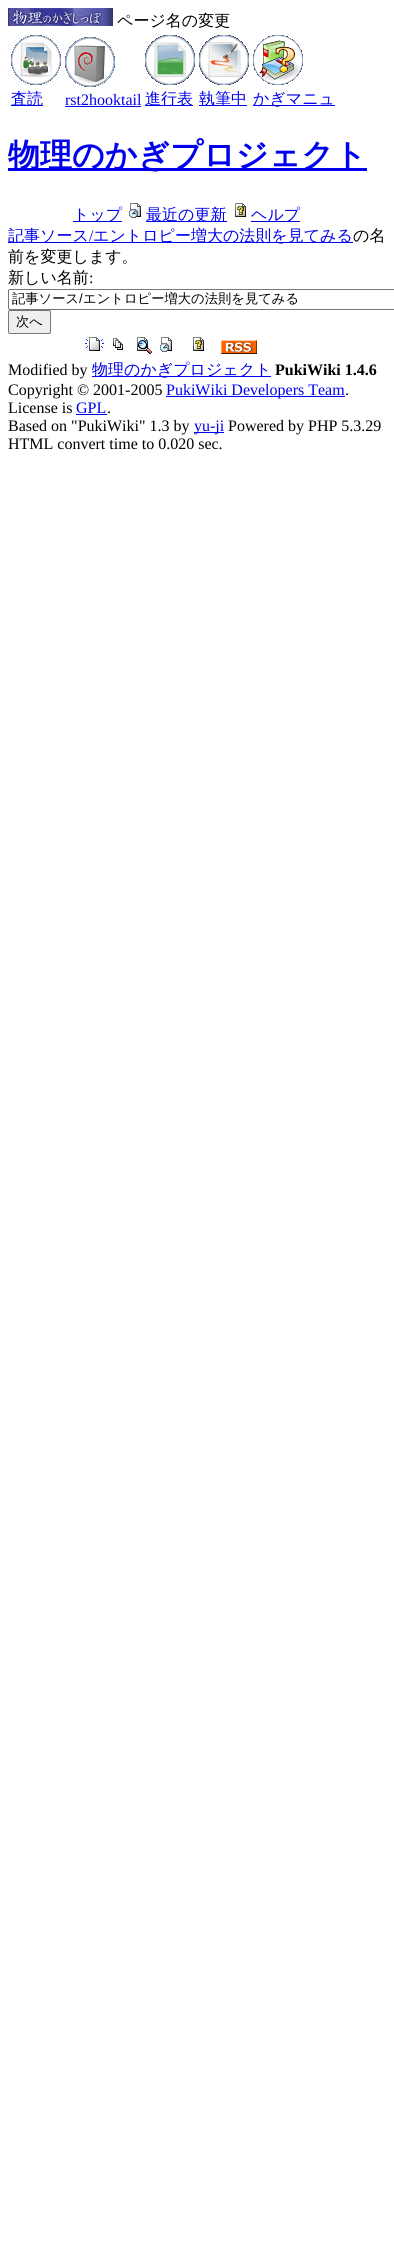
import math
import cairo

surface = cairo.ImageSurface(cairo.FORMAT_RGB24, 394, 2255)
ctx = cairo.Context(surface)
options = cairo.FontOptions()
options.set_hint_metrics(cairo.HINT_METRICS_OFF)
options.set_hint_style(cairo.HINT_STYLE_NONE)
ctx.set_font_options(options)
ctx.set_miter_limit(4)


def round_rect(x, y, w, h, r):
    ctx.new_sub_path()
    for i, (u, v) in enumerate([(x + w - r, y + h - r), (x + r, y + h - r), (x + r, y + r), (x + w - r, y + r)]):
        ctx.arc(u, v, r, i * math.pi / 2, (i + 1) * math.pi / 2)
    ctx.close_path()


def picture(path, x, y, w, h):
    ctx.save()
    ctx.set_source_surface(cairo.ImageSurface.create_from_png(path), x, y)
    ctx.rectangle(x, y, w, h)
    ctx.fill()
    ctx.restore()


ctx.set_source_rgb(1, 1, 1)
ctx.paint()
picture("img1.png", 8, 8, 105, 18)
ctx.select_font_face("WenQuanYi Zen Hei Medium")
ctx.set_font_size(16)
ctx.set_source_rgb(0, 0, 0)
ctx.move_to(117, 26)
ctx.show_text("ページ名の変更")
picture("img2.png", 11, 35, 50, 50)
ctx.set_source_rgb(0, 0, 0.933)
ctx.rectangle(11, 105, 32, 1)
ctx.fill()
ctx.move_to(11, 104)
ctx.show_text("査読")
picture("img3.png", 65, 37, 50, 50)
ctx.select_font_face("Liberation Serif")
ctx.move_to(65, 105)
ctx.show_text("rst2hooktail")
ctx.rectangle(65, 106, 76, 1)
ctx.fill()
picture("img4.png", 145, 35, 50, 50)
ctx.rectangle(145, 105, 48, 1)
ctx.fill()
ctx.select_font_face("WenQuanYi Zen Hei Medium")
ctx.move_to(145, 104)
ctx.show_text("進行表")
picture("img5.png", 199, 35, 50, 50)
ctx.rectangle(199, 105, 48, 1)
ctx.fill()
ctx.move_to(199, 104)
ctx.show_text("執筆中")
picture("img6.png", 253, 35, 50, 50)
ctx.rectangle(253, 105, 82, 1)
ctx.fill()
ctx.move_to(253, 104)
ctx.show_text("かぎマニュ")
ctx.rectangle(8, 168, 359, 3)
ctx.fill()
ctx.select_font_face("WenQuanYi Zen Hei", cairo.FONT_SLANT_NORMAL, cairo.FONT_WEIGHT_BOLD)
ctx.set_font_size(32)
ctx.move_to(8, 166)
ctx.show_text("物理のかぎプロジェクト")
ctx.rectangle(73, 221, 49, 1)
ctx.fill()
ctx.select_font_face("WenQuanYi Zen Hei Medium")
ctx.set_font_size(16)
ctx.move_to(73, 220)
ctx.show_text("トップ")
picture("img7.png", 129, 203, 12, 15)
ctx.rectangle(146, 221, 81, 1)
ctx.fill()
ctx.move_to(146, 220)
ctx.show_text("最近の更新")
picture("img8.png", 235, 203, 11, 14)
ctx.rectangle(251, 221, 49, 1)
ctx.fill()
ctx.move_to(251, 220)
ctx.show_text("ヘルプ")
ctx.rectangle(8, 242, 345, 1)
ctx.fill()
ctx.move_to(8, 241)
ctx.show_text("記事ソース")
ctx.select_font_face("Liberation Serif")
ctx.move_to(89, 241)
ctx.show_text("/")
ctx.select_font_face("WenQuanYi Zen Hei Medium")
ctx.move_to(93, 241)
ctx.show_text("エントロピー増大の法則を見てみる")
ctx.set_source_rgb(0, 0, 0)
ctx.move_to(353, 241)
ctx.show_text("の名")
ctx.move_to(8, 262)
ctx.show_text("前を変更します。")
ctx.move_to(8, 283)
ctx.show_text("新しい名前")
ctx.select_font_face("Liberation Serif")
ctx.move_to(89, 283)
ctx.show_text(":")
round_rect(8.5, 289.5, 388, 20, 1.5)
ctx.set_source_rgb(0.463, 0.463, 0.463)
ctx.set_line_width(1)
ctx.stroke()
ctx.select_font_face("WenQuanYi Zen Hei Medium")
ctx.set_font_size(13.3)
ctx.set_source_rgb(0, 0, 0)
ctx.move_to(12, 303)
ctx.show_text("記事ソース エントロピー増大の法則を見てみる")
ctx.select_font_face("Liberation Sans")
ctx.move_to(79, 303)
ctx.show_text("/")
ctx.set_source_rgb(0.937, 0.937, 0.937)
round_rect(8.5, 310.5, 42, 23, 1.5)
ctx.fill_preserve()
ctx.set_source_rgb(0.463, 0.463, 0.463)
ctx.stroke()
ctx.select_font_face("WenQuanYi Zen Hei Medium")
ctx.set_source_rgb(0, 0, 0)
ctx.move_to(16, 326)
ctx.show_text("次へ")
picture("img9.png", 85, 337, 19, 14)
picture("img10.png", 113, 338, 10, 12)
picture("img11.png", 137, 337, 15, 17)
picture("img7.png", 160, 337, 12, 15)
picture("img8.png", 193, 337, 11, 14)
picture("img12.png", 221, 340, 36, 14)
ctx.select_font_face("Liberation Serif")
ctx.set_font_size(16)
ctx.move_to(8, 375)
ctx.show_text("Modified by")
ctx.set_source_rgb(0, 0, 0.933)
ctx.rectangle(92, 376, 179, 1)
ctx.fill()
ctx.select_font_face("WenQuanYi Zen Hei Medium")
ctx.move_to(92, 375)
ctx.show_text("物理のかぎプロジェクト")
ctx.select_font_face("Liberation Serif", cairo.FONT_SLANT_NORMAL, cairo.FONT_WEIGHT_BOLD)
ctx.set_source_rgb(0, 0, 0)
ctx.move_to(275, 375)
ctx.show_text("PukiWiki 1.4.6")
ctx.select_font_face("Liberation Serif")
ctx.move_to(8, 395)
ctx.show_text("Copyright © 2001-2005")
ctx.set_source_rgb(0, 0, 0.933)
ctx.rectangle(166, 396, 179, 1)
ctx.fill()
ctx.move_to(166, 395)
ctx.show_text("PukiWiki Developers Team")
ctx.set_source_rgb(0, 0, 0)
ctx.move_to(345, 395)
ctx.show_text(".")
ctx.move_to(8, 413)
ctx.show_text("License is")
ctx.set_source_rgb(0, 0, 0.933)
ctx.move_to(76, 413)
ctx.show_text("GPL")
ctx.set_source_rgb(0, 0, 0)
ctx.move_to(107, 413)
ctx.show_text(".")
ctx.set_source_rgb(0, 0, 0.933)
ctx.rectangle(76, 414, 31, 1)
ctx.fill()
ctx.set_source_rgb(0, 0, 0)
ctx.move_to(8, 431)
ctx.show_text("Based on \"PukiWiki\" 1.3 by")
ctx.set_source_rgb(0, 0, 0.933)
ctx.rectangle(194, 432, 30, 1)
ctx.fill()
ctx.move_to(194, 431)
ctx.show_text("yu-ji")
ctx.set_source_rgb(0, 0, 0)
ctx.move_to(228, 431)
ctx.show_text("Powered by PHP 5.3.29")
ctx.move_to(8, 449)
ctx.show_text("HTML convert time to 0.020 sec.")
surface.write_to_png("page.png")
